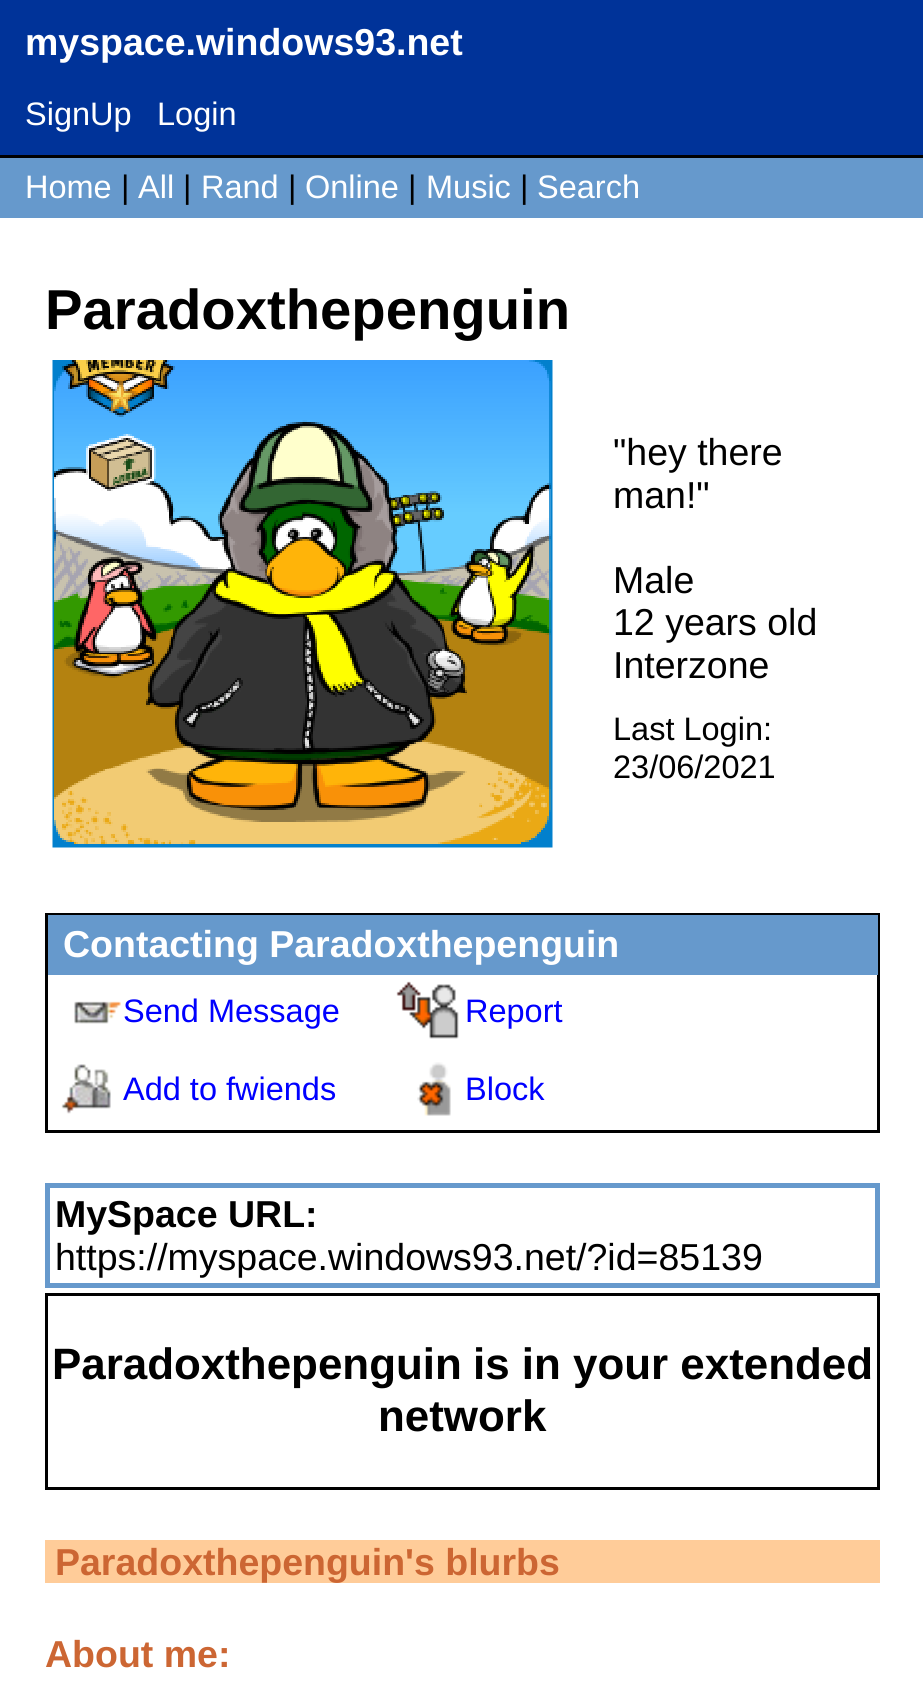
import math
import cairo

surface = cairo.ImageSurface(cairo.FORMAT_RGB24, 923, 1698)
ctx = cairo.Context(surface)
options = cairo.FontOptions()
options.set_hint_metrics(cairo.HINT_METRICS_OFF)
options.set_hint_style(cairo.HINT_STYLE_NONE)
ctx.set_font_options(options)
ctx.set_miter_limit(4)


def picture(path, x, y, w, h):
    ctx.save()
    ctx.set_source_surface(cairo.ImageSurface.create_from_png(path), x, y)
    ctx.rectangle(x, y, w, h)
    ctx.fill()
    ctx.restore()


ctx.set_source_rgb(1, 1, 1)
ctx.paint()
ctx.set_source_rgb(0, 0.2, 0.6)
ctx.rectangle(0, 0, 923, 155)
ctx.fill()
ctx.set_source_rgb(0, 0, 0)
ctx.rectangle(0, 155, 923, 3)
ctx.fill()
ctx.select_font_face("Liberation Sans", cairo.FONT_SLANT_NORMAL, cairo.FONT_WEIGHT_BOLD)
ctx.set_font_size(37.5)
ctx.set_source_rgb(1, 1, 1)
ctx.move_to(25, 55)
ctx.show_text("myspace.windows93.net")
ctx.select_font_face("Liberation Sans")
ctx.set_font_size(32.5)
ctx.move_to(25, 125)
ctx.show_text("SignUp")
ctx.move_to(157, 125)
ctx.show_text("Login")
ctx.set_source_rgb(0.4, 0.6, 0.8)
ctx.rectangle(0, 158, 923, 60)
ctx.fill()
ctx.set_source_rgb(1, 1, 1)
ctx.move_to(25, 198)
ctx.show_text("Home")
ctx.set_source_rgb(0, 0, 0)
ctx.move_to(121, 198)
ctx.show_text("|")
ctx.set_source_rgb(1, 1, 1)
ctx.move_to(138, 198)
ctx.show_text("All")
ctx.set_source_rgb(0, 0, 0)
ctx.move_to(183, 198)
ctx.show_text("|")
ctx.set_source_rgb(1, 1, 1)
ctx.move_to(201, 198)
ctx.show_text("Rand")
ctx.set_source_rgb(0, 0, 0)
ctx.move_to(288, 198)
ctx.show_text("|")
ctx.set_source_rgb(1, 1, 1)
ctx.move_to(305, 198)
ctx.show_text("Online")
ctx.set_source_rgb(0, 0, 0)
ctx.move_to(408, 198)
ctx.show_text("|")
ctx.set_source_rgb(1, 1, 1)
ctx.move_to(426, 198)
ctx.show_text("Music")
ctx.set_source_rgb(0, 0, 0)
ctx.move_to(520, 198)
ctx.show_text("|")
ctx.set_source_rgb(1, 1, 1)
ctx.move_to(537, 198)
ctx.show_text("Search")
ctx.select_font_face("Liberation Sans", cairo.FONT_SLANT_NORMAL, cairo.FONT_WEIGHT_BOLD)
ctx.set_font_size(56.25)
ctx.set_source_rgb(0, 0, 0)
ctx.move_to(45, 329)
ctx.show_text("Paradoxthepenguin")
picture("img1.png", 52, 360, 501, 488)
ctx.select_font_face("Liberation Sans")
ctx.set_font_size(37.5)
ctx.move_to(613, 465)
ctx.show_text("\"hey there")
ctx.move_to(613, 508)
ctx.show_text("man!\"")
ctx.move_to(613, 593)
ctx.show_text("Male")
ctx.move_to(613, 635)
ctx.show_text("12 years old")
ctx.move_to(613, 678)
ctx.show_text("Interzone")
ctx.set_font_size(32.5)
ctx.move_to(613, 740)
ctx.show_text("Last Login:")
ctx.move_to(613, 778)
ctx.show_text("23/06/2021")
ctx.rectangle(46.5, 914.5, 832, 217)
ctx.set_line_width(3)
ctx.stroke()
ctx.set_source_rgb(0.4, 0.6, 0.8)
ctx.rectangle(48, 915, 830, 60)
ctx.fill()
ctx.select_font_face("Liberation Sans", cairo.FONT_SLANT_NORMAL, cairo.FONT_WEIGHT_BOLD)
ctx.set_font_size(37.5)
ctx.set_source_rgb(1, 1, 1)
ctx.move_to(63, 957)
ctx.show_text("Contacting Paradoxthepenguin")
picture("img2.png", 74, 1001, 47, 23)
ctx.select_font_face("Liberation Sans")
ctx.set_font_size(32.5)
ctx.set_source_rgb(0, 0, 1)
ctx.move_to(123, 1022)
ctx.show_text("Send Message")
picture("img3.png", 396, 981, 63, 58)
ctx.move_to(465, 1022)
ctx.show_text("Report")
picture("img4.png", 61, 1064, 50, 50)
ctx.move_to(123, 1100)
ctx.show_text("Add to fwiends")
picture("img5.png", 417, 1062, 34, 54)
ctx.move_to(465, 1100)
ctx.show_text("Block")
ctx.rectangle(47.5, 1185.5, 830, 100)
ctx.set_source_rgb(0.4, 0.6, 0.8)
ctx.set_line_width(5)
ctx.stroke()
ctx.select_font_face("Liberation Sans", cairo.FONT_SLANT_NORMAL, cairo.FONT_WEIGHT_BOLD)
ctx.set_font_size(37.5)
ctx.set_source_rgb(0, 0, 0)
ctx.move_to(55, 1227)
ctx.show_text("MySpace URL:")
ctx.select_font_face("Liberation Sans")
ctx.move_to(55, 1270)
ctx.show_text("https://myspace.windows93.net/?id=85139")
ctx.rectangle(46.5, 1294.5, 832, 194)
ctx.set_line_width(3)
ctx.stroke()
ctx.select_font_face("Liberation Sans", cairo.FONT_SLANT_NORMAL, cairo.FONT_WEIGHT_BOLD)
ctx.set_font_size(43.9)
ctx.move_to(52, 1379)
ctx.show_text("Paradoxthepenguin")
ctx.move_to(473, 1379)
ctx.show_text("is in your extended")
ctx.move_to(378, 1431)
ctx.show_text("network")
ctx.set_source_rgb(1, 0.8, 0.6)
ctx.rectangle(45, 1540, 835, 43)
ctx.fill()
ctx.set_font_size(37.5)
ctx.set_source_rgb(0.8, 0.4, 0.2)
ctx.move_to(55, 1575)
ctx.show_text("Paradoxthepenguin's blurbs")
ctx.move_to(45, 1667)
ctx.show_text("About me:")
surface.write_to_png("page.png")
